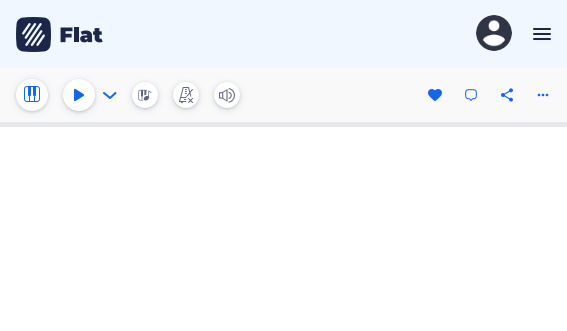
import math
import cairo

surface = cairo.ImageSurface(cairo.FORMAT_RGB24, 567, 331)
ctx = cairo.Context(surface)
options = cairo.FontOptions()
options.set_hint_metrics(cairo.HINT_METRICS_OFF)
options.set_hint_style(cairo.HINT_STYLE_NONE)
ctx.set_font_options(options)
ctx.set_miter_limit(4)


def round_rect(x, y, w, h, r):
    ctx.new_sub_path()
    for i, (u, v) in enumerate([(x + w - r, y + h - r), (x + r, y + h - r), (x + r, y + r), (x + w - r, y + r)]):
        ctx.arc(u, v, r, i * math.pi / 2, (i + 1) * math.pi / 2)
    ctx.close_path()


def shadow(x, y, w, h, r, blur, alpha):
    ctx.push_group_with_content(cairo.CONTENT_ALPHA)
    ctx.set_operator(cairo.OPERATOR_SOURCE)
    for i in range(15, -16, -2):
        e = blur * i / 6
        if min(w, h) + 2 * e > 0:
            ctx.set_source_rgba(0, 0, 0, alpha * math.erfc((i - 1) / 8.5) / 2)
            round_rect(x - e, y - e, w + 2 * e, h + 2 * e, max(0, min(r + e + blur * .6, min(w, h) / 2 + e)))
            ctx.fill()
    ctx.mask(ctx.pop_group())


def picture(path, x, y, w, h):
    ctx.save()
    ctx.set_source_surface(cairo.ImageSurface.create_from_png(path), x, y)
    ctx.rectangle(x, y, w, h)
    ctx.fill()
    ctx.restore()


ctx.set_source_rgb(1, 1, 1)
ctx.paint()
ctx.set_source_rgb(0.945, 0.965, 0.996)
ctx.rectangle(0, 0, 567, 68)
ctx.fill()
picture("img1.png", 16, 17, 87, 35)
ctx.set_source_rgb(1, 1, 1)
ctx.arc(494, 33, 18, 0, 2 * math.pi)
ctx.fill()
picture("img2.png", 476, 15, 36, 36)
ctx.set_source_rgb(0.11, 0.149, 0.29)
round_rect(533, 28, 18, 2, 1)
ctx.fill()
round_rect(533, 33, 18, 2, 1)
ctx.fill()
round_rect(533, 38, 18, 2, 1)
ctx.fill()
ctx.set_source_rgb(0.976, 0.976, 0.98)
ctx.rectangle(0, 68, 567, 54)
ctx.fill()
ctx.set_source_rgb(0.157, 0.188, 0.31)
shadow(63, 81, 32, 32, 16, 4, 0.1)
shadow(132, 84, 26, 26, 13, 4, 0.1)
shadow(173, 84, 26, 26, 13, 4, 0.1)
shadow(214, 84, 26, 26, 13, 4, 0.1)
ctx.set_source_rgb(0.906, 0.91, 0.925)
ctx.rectangle(0, 122, 567, 5)
ctx.fill()
ctx.set_source_rgb(0.157, 0.188, 0.31)
shadow(16, 80, 32, 32, 16, 4, 0.1)
shadow(16, 80, 32, 32, 16, 1.5, 0.2)
ctx.set_source_rgb(1, 1, 1)
ctx.arc(32, 95, 16, 0, 2 * math.pi)
ctx.fill()
picture("img3.png", 24, 86, 16, 16)
ctx.set_source_rgb(0.157, 0.188, 0.31)
shadow(63, 80, 32, 32, 16, 1.5, 0.2)
ctx.set_source_rgb(1, 1, 1)
ctx.arc(79, 95, 16, 0, 2 * math.pi)
ctx.fill()
picture("img4.png", 74, 88, 11, 14)
ctx.new_path()
ctx.move_to(104, 93)
ctx.line_to(110, 98)
ctx.line_to(115.5, 93)
ctx.set_source_rgb(0.082, 0.396, 0.937)
ctx.set_line_cap(cairo.LINE_CAP_ROUND)
ctx.set_line_join(cairo.LINE_JOIN_ROUND)
ctx.stroke()
ctx.set_source_rgb(0.157, 0.188, 0.31)
shadow(132, 83, 26, 26, 13, 1.5, 0.2)
ctx.set_source_rgb(1, 1, 1)
ctx.arc(145, 95, 13, 0, 2 * math.pi)
ctx.fill()
picture("img5.png", 138, 89, 14, 12)
ctx.set_source_rgb(0.157, 0.188, 0.31)
shadow(173, 83, 26, 26, 13, 1.5, 0.2)
ctx.set_source_rgb(1, 1, 1)
ctx.arc(186, 95, 13, 0, 2 * math.pi)
ctx.fill()
picture("img6.png", 179, 87, 14, 16)
ctx.set_source_rgb(0.157, 0.188, 0.31)
shadow(214, 83, 26, 26, 13, 1.5, 0.2)
ctx.set_source_rgb(1, 1, 1)
ctx.arc(227, 95, 13, 0, 2 * math.pi)
ctx.fill()
picture("img7.png", 219, 88, 16, 15)
picture("img8.png", 428, 89, 14, 12)
picture("img9.png", 465, 89, 12, 12)
picture("img10.png", 501, 88, 12, 14)
picture("img11.png", 537, 93, 12, 4)
surface.write_to_png("page.png")
